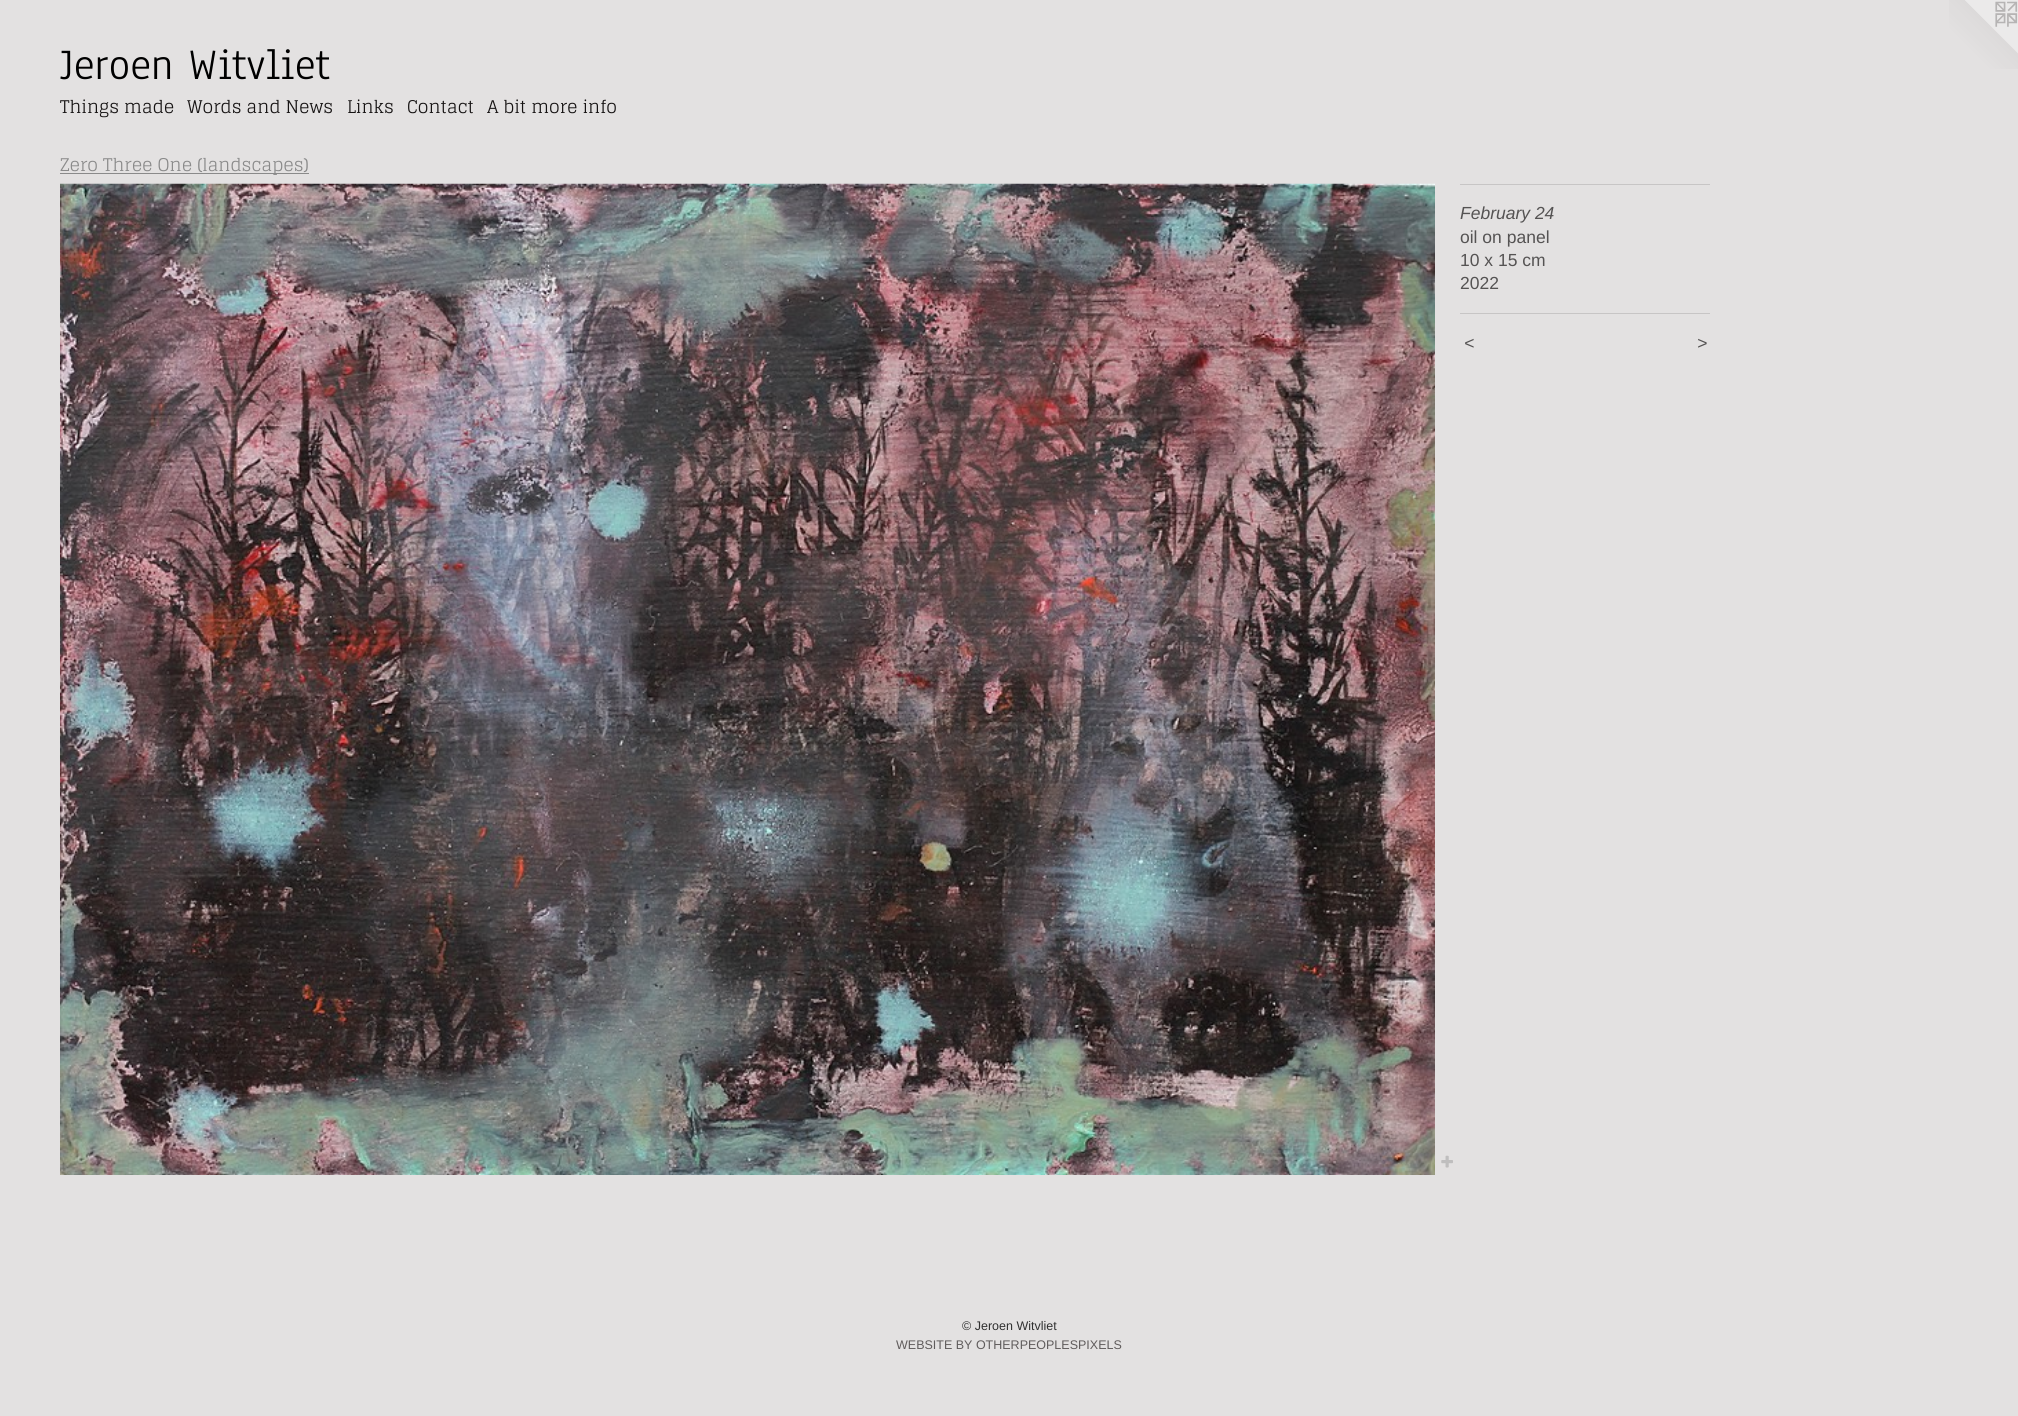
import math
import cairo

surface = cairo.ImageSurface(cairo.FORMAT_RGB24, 2018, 1416)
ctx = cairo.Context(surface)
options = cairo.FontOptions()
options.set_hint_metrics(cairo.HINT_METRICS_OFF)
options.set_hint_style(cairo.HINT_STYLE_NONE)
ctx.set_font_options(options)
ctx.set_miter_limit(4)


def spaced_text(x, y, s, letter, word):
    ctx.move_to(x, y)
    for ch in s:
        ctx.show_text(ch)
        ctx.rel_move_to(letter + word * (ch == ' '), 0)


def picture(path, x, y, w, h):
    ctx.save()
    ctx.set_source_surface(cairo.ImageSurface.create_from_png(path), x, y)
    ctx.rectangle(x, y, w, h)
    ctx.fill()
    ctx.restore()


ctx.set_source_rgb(0.89, 0.882, 0.882)
ctx.paint()
ctx.select_font_face("Anaheim")
ctx.set_font_size(45)
ctx.set_source_rgb(0, 0, 0)
ctx.move_to(60, 79)
ctx.show_text("Jeroen Witvliet")
picture("img1.png", 1949, 0, 69, 69)
ctx.select_font_face("Glegoo")
ctx.set_font_size(17.5)
ctx.set_source_rgb(0.086, 0.075, 0.075)
ctx.move_to(60, 113)
ctx.show_text("Things made")
ctx.move_to(187, 113)
ctx.show_text("Words and News")
ctx.move_to(347, 113)
ctx.show_text("Links")
ctx.move_to(407, 113)
ctx.show_text("Contact")
ctx.move_to(487, 113)
ctx.show_text("A bit more info")
ctx.set_source_rgb(0.541, 0.541, 0.541)
ctx.rectangle(60, 173, 249, 1)
ctx.fill()
ctx.move_to(60, 171)
ctx.show_text("Zero Three One (landscapes)")
picture("img2.png", 60, 183, 1375, 992)
picture("img3.png", 1441, 1155, 12, 13)
ctx.set_source_rgb(0.78, 0.773, 0.773)
ctx.rectangle(1460, 184, 250, 1)
ctx.fill()
ctx.select_font_face("Liberation Sans", cairo.FONT_SLANT_ITALIC)
ctx.set_source_rgb(0.333, 0.325, 0.325)
ctx.move_to(1460, 219)
ctx.show_text("February 24")
ctx.select_font_face("Liberation Sans")
ctx.move_to(1460, 243)
ctx.show_text("oil on panel")
ctx.move_to(1460, 266)
ctx.show_text("10 x 15 cm")
ctx.move_to(1460, 289)
ctx.show_text("2022")
ctx.set_source_rgb(0.78, 0.773, 0.773)
ctx.rectangle(1460, 313, 250, 1)
ctx.fill()
ctx.select_font_face("Liberation Sans", cairo.FONT_SLANT_ITALIC)
ctx.set_source_rgb(0.333, 0.325, 0.325)
spaced_text(1464, 349, "<", 1, 0)
spaced_text(1697, 349, ">", 1, 0)
ctx.select_font_face("Liberation Sans")
ctx.set_font_size(12.5)
ctx.set_source_rgb(0.188, 0.188, 0.188)
ctx.move_to(962, 1330)
ctx.show_text("© Jeroen Witvliet")
ctx.set_source_rgb(0.376, 0.361, 0.361)
ctx.move_to(896, 1349)
ctx.show_text("WEBSITE BY OTHERPEOPLESPIXELS")
surface.write_to_png("page.png")
